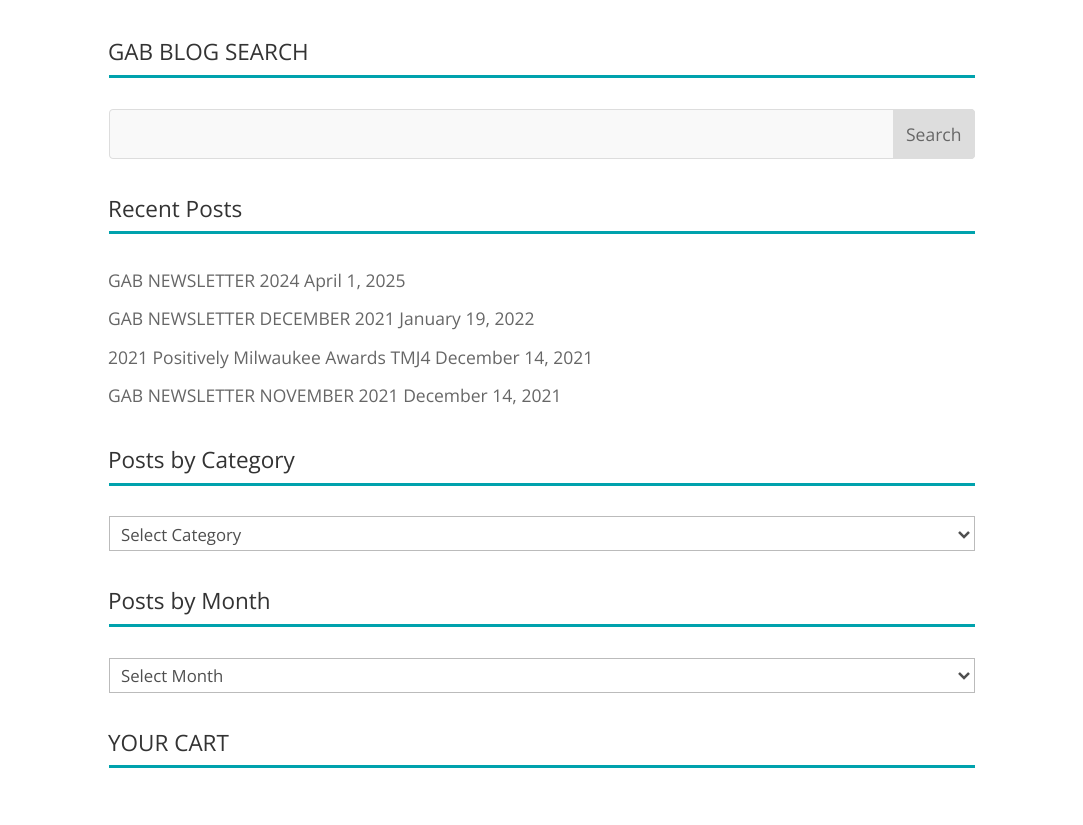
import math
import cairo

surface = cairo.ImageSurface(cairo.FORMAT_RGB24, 1083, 825)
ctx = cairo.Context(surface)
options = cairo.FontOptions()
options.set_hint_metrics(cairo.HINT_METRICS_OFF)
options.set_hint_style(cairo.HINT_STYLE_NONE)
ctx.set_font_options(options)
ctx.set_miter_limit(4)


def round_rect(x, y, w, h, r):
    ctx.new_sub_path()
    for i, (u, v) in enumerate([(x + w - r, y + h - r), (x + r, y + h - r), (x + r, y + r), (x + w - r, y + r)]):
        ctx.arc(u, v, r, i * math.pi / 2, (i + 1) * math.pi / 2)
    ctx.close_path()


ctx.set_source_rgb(1, 1, 1)
ctx.paint()
ctx.set_source_rgb(0, 0.635, 0.678)
ctx.rectangle(109, 75, 866, 3)
ctx.fill()
ctx.select_font_face("Open Sans")
ctx.set_font_size(22.5)
ctx.set_source_rgb(0.2, 0.2, 0.2)
ctx.move_to(108, 60)
ctx.show_text("GAB BLOG SEARCH")
ctx.set_source_rgb(0.976, 0.976, 0.976)
round_rect(109.5, 109.5, 865, 49, 3.5)
ctx.fill_preserve()
ctx.set_source_rgb(0.867, 0.867, 0.867)
ctx.set_line_width(1)
ctx.stroke()
ctx.new_path()
ctx.move_to(893.5, 109.5)
ctx.line_to(971, 109.5)
ctx.curve_to(973, 109.5, 974.5, 111, 974.5, 113)
ctx.line_to(974.5, 155)
ctx.curve_to(974.5, 157, 973, 158.5, 971, 158.5)
ctx.line_to(893.5, 158.5)
ctx.close_path()
ctx.fill_preserve()
ctx.stroke()
ctx.set_font_size(17.5)
ctx.set_source_rgb(0.4, 0.4, 0.4)
ctx.move_to(906, 141)
ctx.show_text("Search")
ctx.set_source_rgb(0, 0.635, 0.678)
ctx.rectangle(109, 231, 866, 3)
ctx.fill()
ctx.set_font_size(22.5)
ctx.set_source_rgb(0.2, 0.2, 0.2)
ctx.move_to(108, 217)
ctx.show_text("Recent Posts")
ctx.set_font_size(17.5)
ctx.set_source_rgb(0.4, 0.4, 0.4)
ctx.move_to(108, 287)
ctx.show_text("GAB NEWSLETTER 2024 April 1, 2025")
ctx.move_to(108, 325)
ctx.show_text("GAB NEWSLETTER DECEMBER 2021 January 19, 2022")
ctx.move_to(108, 364)
ctx.show_text("2021 Positively Milwaukee Awards TMJ4 December 14, 2021")
ctx.move_to(108, 402)
ctx.show_text("GAB NEWSLETTER NOVEMBER 2021 December 14, 2021")
ctx.set_source_rgb(0, 0.635, 0.678)
ctx.rectangle(109, 483, 866, 3)
ctx.fill()
ctx.set_font_size(22.5)
ctx.set_source_rgb(0.2, 0.2, 0.2)
ctx.move_to(108, 468)
ctx.show_text("Posts by Category")
ctx.rectangle(109.5, 516.5, 865, 34)
ctx.set_source_rgb(0.733, 0.733, 0.733)
ctx.stroke()
ctx.new_path()
ctx.move_to(959, 532)
ctx.line_to(964, 537)
ctx.line_to(969, 532)
ctx.set_source_rgb(0.306, 0.306, 0.306)
ctx.set_line_width(2.5)
ctx.stroke()
ctx.set_font_size(16.75)
ctx.move_to(121, 541)
ctx.show_text("Select Category")
ctx.set_source_rgb(0, 0.635, 0.678)
ctx.rectangle(109, 624, 866, 3)
ctx.fill()
ctx.set_font_size(22.5)
ctx.set_source_rgb(0.2, 0.2, 0.2)
ctx.move_to(108, 609)
ctx.show_text("Posts by Month")
ctx.rectangle(109.5, 658.5, 865, 34)
ctx.set_source_rgb(0.733, 0.733, 0.733)
ctx.set_line_width(1)
ctx.stroke()
ctx.new_path()
ctx.move_to(959, 673)
ctx.line_to(964, 678)
ctx.line_to(969, 673)
ctx.set_source_rgb(0.306, 0.306, 0.306)
ctx.set_line_width(2.5)
ctx.stroke()
ctx.set_font_size(16.75)
ctx.move_to(121, 682)
ctx.show_text("Select Month")
ctx.set_source_rgb(0, 0.635, 0.678)
ctx.rectangle(109, 765, 866, 3)
ctx.fill()
ctx.set_font_size(22.5)
ctx.set_source_rgb(0.2, 0.2, 0.2)
ctx.move_to(108, 751)
ctx.show_text("YOUR CART")
surface.write_to_png("page.png")
